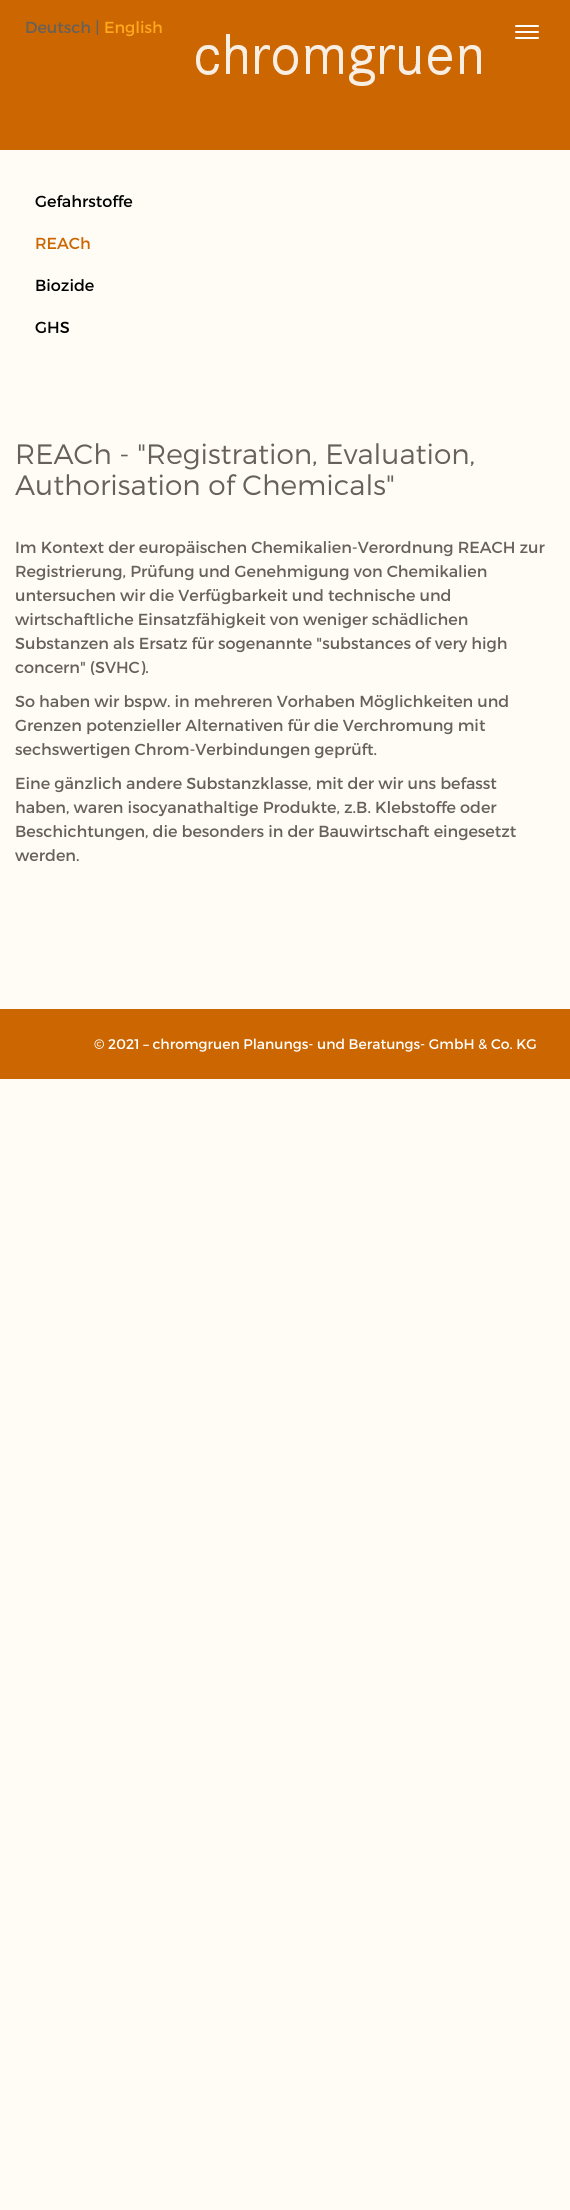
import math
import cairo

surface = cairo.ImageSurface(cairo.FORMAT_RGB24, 570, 2210)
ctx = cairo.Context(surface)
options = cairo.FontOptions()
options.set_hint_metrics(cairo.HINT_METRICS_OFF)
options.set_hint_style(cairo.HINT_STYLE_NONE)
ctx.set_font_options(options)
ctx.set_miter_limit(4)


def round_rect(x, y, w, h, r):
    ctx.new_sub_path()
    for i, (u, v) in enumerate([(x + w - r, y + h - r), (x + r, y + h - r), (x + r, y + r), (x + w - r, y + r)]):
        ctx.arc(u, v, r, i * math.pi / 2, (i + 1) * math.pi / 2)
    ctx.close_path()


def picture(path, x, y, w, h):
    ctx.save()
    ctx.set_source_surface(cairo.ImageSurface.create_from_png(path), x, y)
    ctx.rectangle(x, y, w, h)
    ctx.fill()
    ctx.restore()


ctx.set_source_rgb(1, 0.988, 0.961)
ctx.paint()
ctx.set_source_rgb(0.8, 0.4, 0)
ctx.rectangle(0, 0, 570, 150)
ctx.fill()
ctx.select_font_face("Montserrat")
ctx.set_font_size(16)
ctx.set_source_rgb(0.4, 0.38, 0.357)
ctx.move_to(25, 33)
ctx.show_text("Deutsch |")
ctx.set_source_rgb(1, 0.659, 0.118)
ctx.move_to(104, 33)
ctx.show_text("English")
ctx.set_source_rgb(1, 1, 1)
round_rect(515, 25, 24, 2, 1)
ctx.fill()
round_rect(515, 31, 24, 2, 1)
ctx.fill()
round_rect(515, 37, 24, 2, 1)
ctx.fill()
picture("img1.png", 196, 34, 285, 52)
ctx.set_source_rgb(0, 0, 0)
ctx.move_to(35, 207)
ctx.show_text("Gefahrstoffe")
ctx.set_source_rgb(0.8, 0.4, 0)
ctx.move_to(35, 249)
ctx.show_text("REACh")
ctx.set_source_rgb(0, 0, 0)
ctx.move_to(35, 291)
ctx.show_text("Biozide")
ctx.move_to(35, 333)
ctx.show_text("GHS")
ctx.select_font_face("Montserrat Light")
ctx.set_font_size(28)
ctx.set_source_rgb(0.4, 0.38, 0.357)
ctx.move_to(15, 464)
ctx.show_text("REACh - \"Registration, Evaluation,")
ctx.move_to(15, 495)
ctx.show_text("Authorisation of Chemicals\"")
ctx.select_font_face("Montserrat")
ctx.set_font_size(16)
ctx.move_to(15, 553)
ctx.show_text("Im Kontext der europäischen Chemikalien-Verordnung REACH zur")
ctx.move_to(15, 577)
ctx.show_text("Registrierung, Prüfung und Genehmigung von Chemikalien")
ctx.move_to(15, 601)
ctx.show_text("untersuchen wir die Verfügbarkeit und technische und")
ctx.move_to(15, 625)
ctx.show_text("wirtschaftliche Einsatzfähigkeit von weniger schädlichen")
ctx.move_to(15, 649)
ctx.show_text("Substanzen als Ersatz für sogenannte \"substances of very high")
ctx.move_to(15, 673)
ctx.show_text("concern\" (SVHC).")
ctx.move_to(15, 707)
ctx.show_text("So haben wir bspw. in mehreren Vorhaben Möglichkeiten und")
ctx.move_to(15, 731)
ctx.show_text("Grenzen potenzieller Alternativen für die Verchromung mit")
ctx.move_to(15, 755)
ctx.show_text("sechswertigen Chrom-Verbindungen geprüft.")
ctx.move_to(15, 789)
ctx.show_text("Eine gänzlich andere Substanzklasse, mit der wir uns befasst")
ctx.move_to(15, 813)
ctx.show_text("haben, waren isocyanathaltige Produkte, z.B. Klebstoffe oder")
ctx.move_to(15, 837)
ctx.show_text("Beschichtungen, die besonders in der Bauwirtschaft eingesetzt")
ctx.move_to(15, 861)
ctx.show_text("werden.")
ctx.set_source_rgb(0.8, 0.4, 0)
ctx.rectangle(0, 1009, 570, 70)
ctx.fill()
ctx.set_font_size(14)
ctx.set_source_rgb(1, 1, 1)
ctx.move_to(94, 1049)
ctx.show_text("© 2021 – chromgruen Planungs- und Beratungs- GmbH & Co. KG")
surface.write_to_png("page.png")
